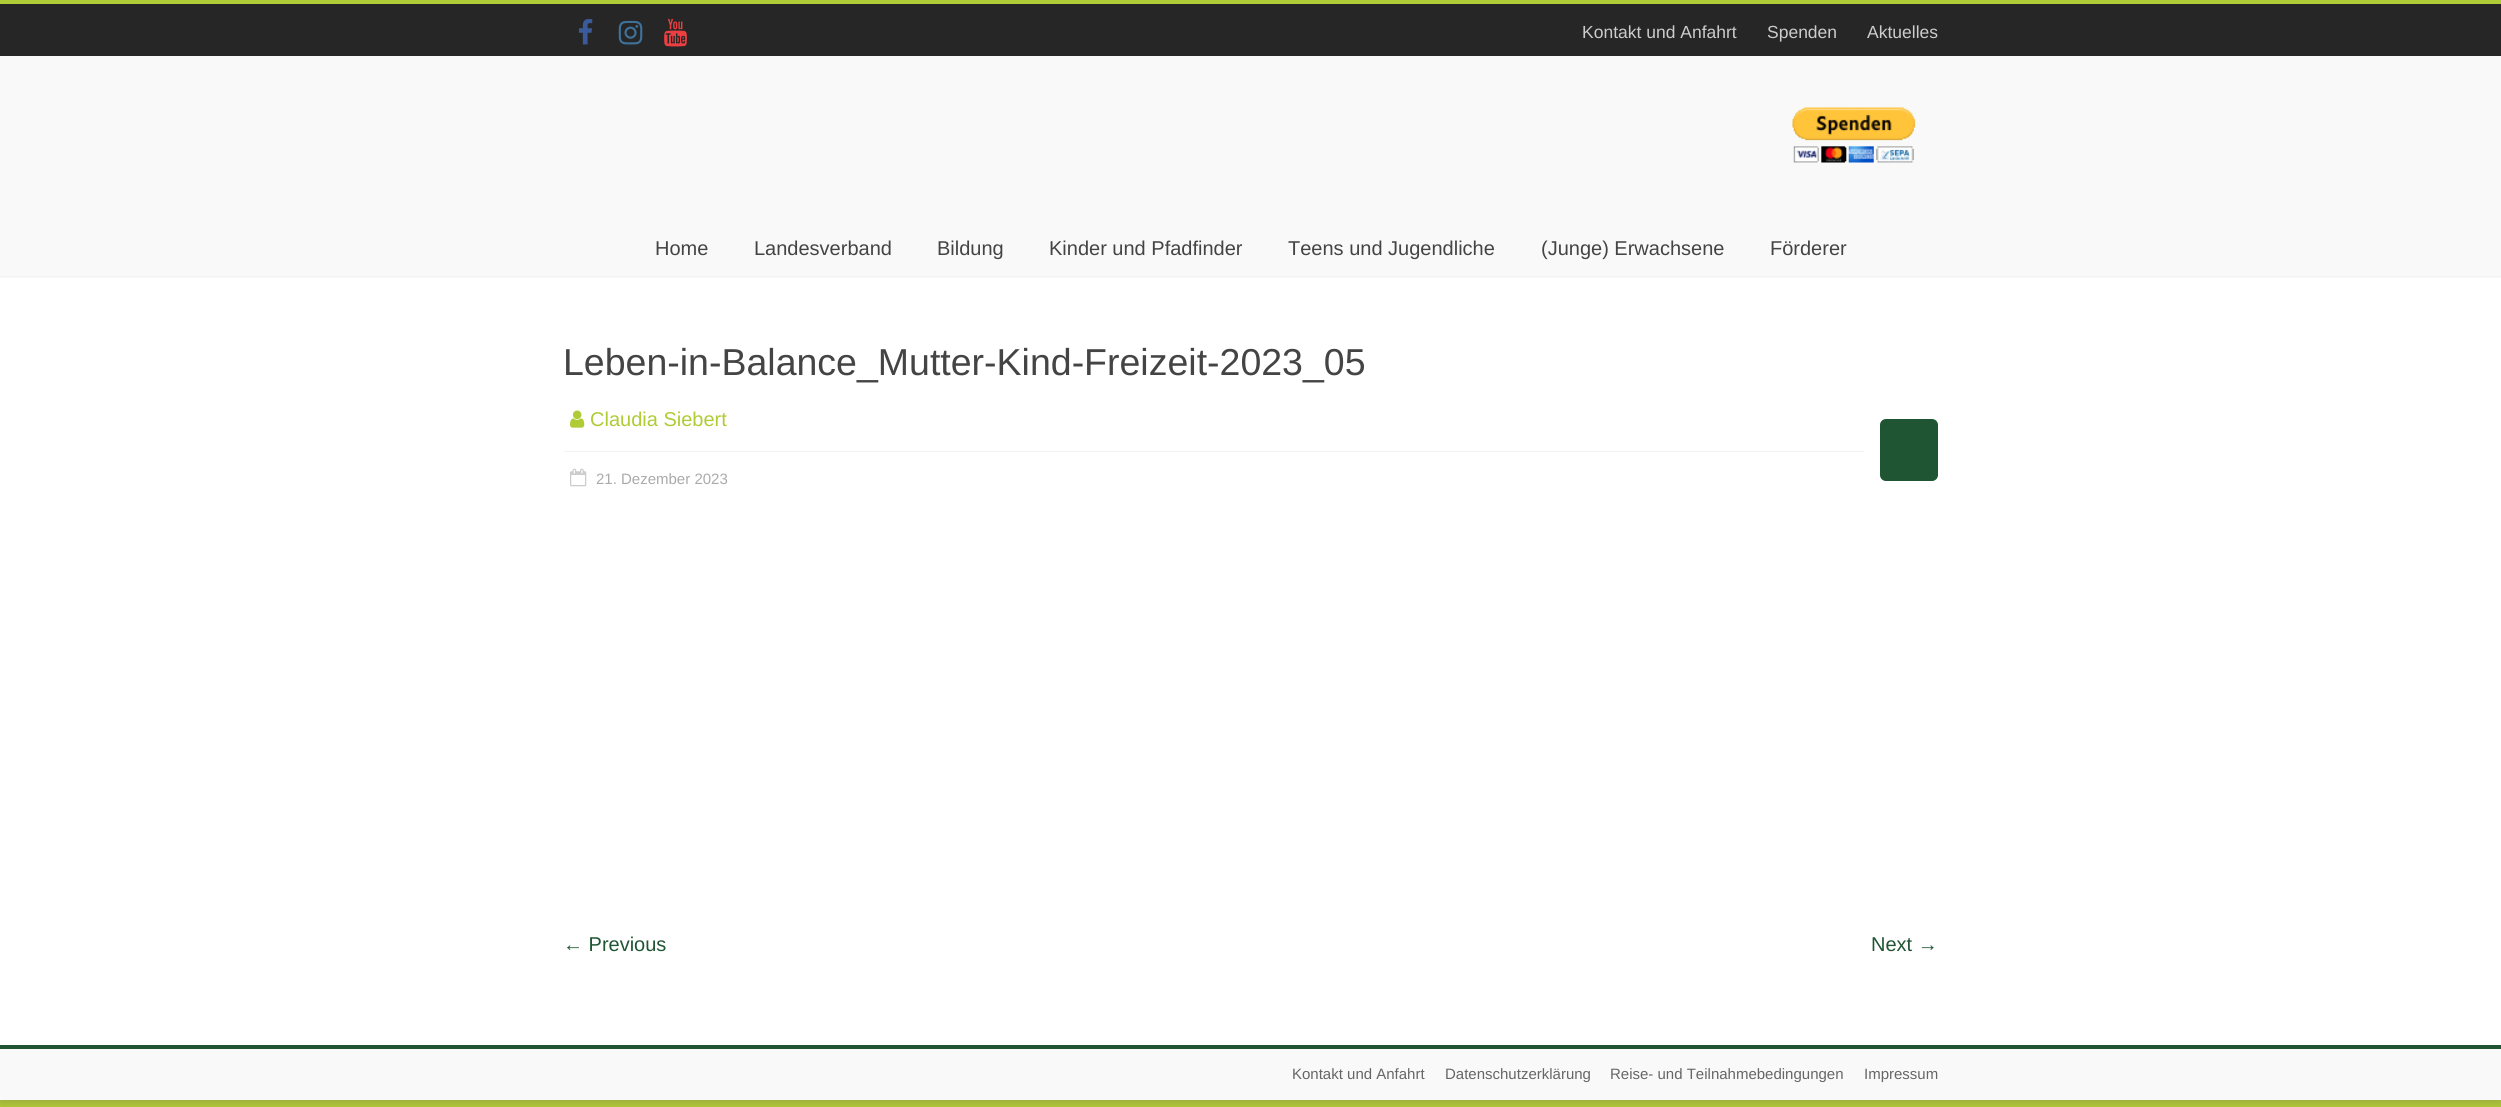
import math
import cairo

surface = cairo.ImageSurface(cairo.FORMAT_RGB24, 2501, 1107)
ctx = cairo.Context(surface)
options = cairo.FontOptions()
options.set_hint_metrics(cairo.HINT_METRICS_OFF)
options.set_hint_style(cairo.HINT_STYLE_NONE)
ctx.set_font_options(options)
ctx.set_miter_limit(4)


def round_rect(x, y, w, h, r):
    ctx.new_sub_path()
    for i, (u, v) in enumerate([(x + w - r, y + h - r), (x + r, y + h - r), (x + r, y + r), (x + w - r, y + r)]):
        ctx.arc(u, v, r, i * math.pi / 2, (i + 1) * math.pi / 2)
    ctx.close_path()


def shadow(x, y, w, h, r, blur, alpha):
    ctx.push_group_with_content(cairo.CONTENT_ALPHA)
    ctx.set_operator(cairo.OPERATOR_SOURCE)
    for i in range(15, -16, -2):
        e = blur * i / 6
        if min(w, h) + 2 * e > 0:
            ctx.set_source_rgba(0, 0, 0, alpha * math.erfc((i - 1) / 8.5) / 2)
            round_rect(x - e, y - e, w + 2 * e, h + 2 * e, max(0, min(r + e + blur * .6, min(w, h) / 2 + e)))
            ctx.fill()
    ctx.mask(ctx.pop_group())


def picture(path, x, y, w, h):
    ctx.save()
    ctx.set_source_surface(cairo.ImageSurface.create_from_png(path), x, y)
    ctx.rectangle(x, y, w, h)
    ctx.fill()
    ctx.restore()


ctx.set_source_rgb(0.694, 0.792, 0.204)
ctx.paint()
ctx.set_source_rgb(0.392, 0.392, 0.392)
shadow(0, 3, 2501, 1100, 0, 4, 0.3)
ctx.set_source_rgb(1, 1, 1)
ctx.rectangle(0, 278, 2501, 767)
ctx.fill()
ctx.set_source_rgb(0.686, 0.796, 0.208)
ctx.rectangle(0, 0, 2501, 4)
ctx.fill()
ctx.set_source_rgb(0.149, 0.149, 0.149)
ctx.rectangle(0, 4, 2501, 52)
ctx.fill()
picture("img1.png", 578, 18, 15, 27)
picture("img2.png", 618, 20, 25, 25)
picture("img3.png", 664, 18, 23, 29)
ctx.select_font_face("Liberation Sans")
ctx.set_font_size(17.5)
ctx.set_source_rgb(0.8, 0.8, 0.8)
ctx.move_to(1582, 38)
ctx.show_text("Kontakt und Anfahrt")
ctx.move_to(1767, 38)
ctx.show_text("Spenden")
ctx.move_to(1867, 38)
ctx.show_text("Aktuelles")
ctx.set_source_rgb(0.973, 0.973, 0.973)
ctx.rectangle(0, 56, 2501, 222)
ctx.fill()
ctx.set_source_rgb(0.949, 0.949, 0.949)
ctx.rectangle(0, 276, 2501, 1)
ctx.fill()
picture("img4.png", 1792, 107, 124, 56)
ctx.set_font_size(20)
ctx.set_source_rgb(0.267, 0.267, 0.267)
ctx.move_to(655, 255)
ctx.show_text("Home")
ctx.move_to(754, 255)
ctx.show_text("Landesverband")
ctx.move_to(937, 255)
ctx.show_text("Bildung")
ctx.move_to(1049, 255)
ctx.show_text("Kinder und Pfadfinder")
ctx.move_to(1288, 255)
ctx.show_text("Teens und Jugendliche")
ctx.move_to(1541, 255)
ctx.show_text("(Junge) Erwachsene")
ctx.move_to(1770, 255)
ctx.show_text("Förderer")
ctx.set_font_size(37.5)
ctx.move_to(563, 375)
ctx.show_text("Leben-in-Balance_Mutter-Kind-Freizeit-2023_05")
picture("img5.png", 570, 410, 15, 18)
ctx.set_font_size(20)
ctx.set_source_rgb(0.686, 0.796, 0.208)
ctx.move_to(590, 426)
ctx.show_text("Claudia Siebert")
ctx.set_source_rgb(0.949, 0.949, 0.949)
ctx.rectangle(564, 451, 1300, 1)
ctx.fill()
ctx.set_source_rgb(0.122, 0.333, 0.2)
round_rect(1880, 419, 58, 62, 6)
ctx.fill()
picture("img6.png", 570, 468, 17, 19)
ctx.set_font_size(15)
ctx.set_source_rgb(0.667, 0.667, 0.667)
ctx.move_to(596, 484)
ctx.show_text("21. Dezember 2023")
ctx.set_font_size(20)
ctx.set_source_rgb(0.122, 0.333, 0.2)
ctx.move_to(563, 951)
ctx.show_text("← Previous")
ctx.move_to(1871, 951)
ctx.show_text("Next →")
ctx.set_source_rgb(0.973, 0.973, 0.973)
ctx.rectangle(0, 1049, 2501, 51)
ctx.fill()
ctx.set_source_rgb(0.122, 0.333, 0.2)
ctx.rectangle(0, 1045, 2501, 4)
ctx.fill()
ctx.set_font_size(15)
ctx.set_source_rgb(0.4, 0.4, 0.4)
ctx.move_to(1292, 1079)
ctx.show_text("Kontakt und Anfahrt")
ctx.move_to(1445, 1079)
ctx.show_text("Datenschutzerklärung")
ctx.move_to(1610, 1079)
ctx.show_text("Reise- und Teilnahmebedingungen")
ctx.move_to(1864, 1079)
ctx.show_text("Impressum")
surface.write_to_png("page.png")
